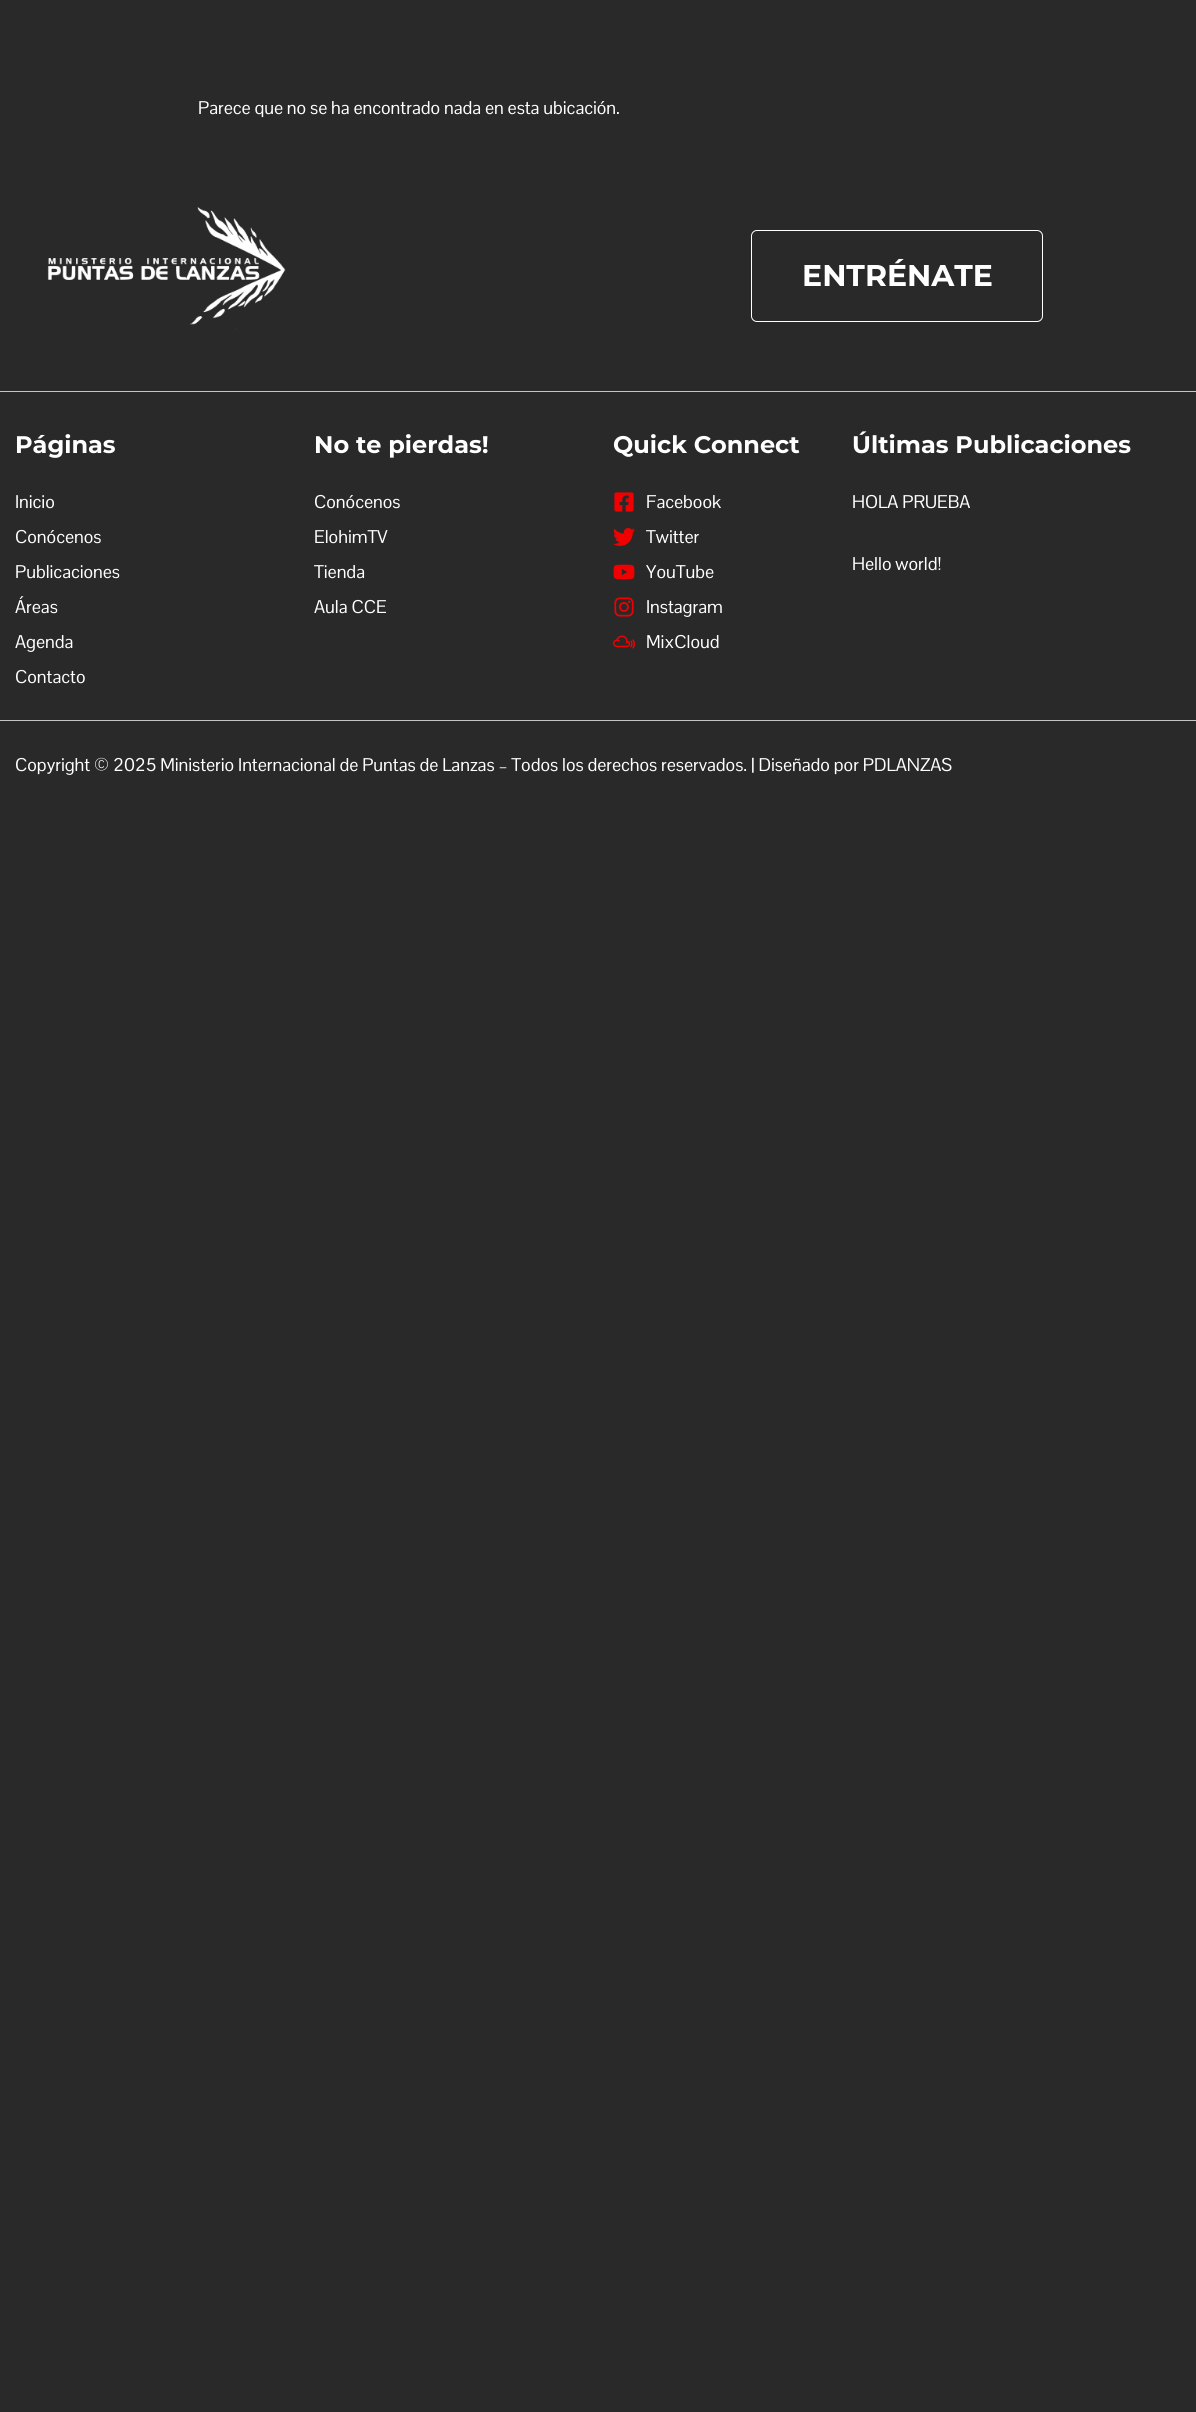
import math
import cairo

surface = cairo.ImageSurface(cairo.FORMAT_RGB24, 1196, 2412)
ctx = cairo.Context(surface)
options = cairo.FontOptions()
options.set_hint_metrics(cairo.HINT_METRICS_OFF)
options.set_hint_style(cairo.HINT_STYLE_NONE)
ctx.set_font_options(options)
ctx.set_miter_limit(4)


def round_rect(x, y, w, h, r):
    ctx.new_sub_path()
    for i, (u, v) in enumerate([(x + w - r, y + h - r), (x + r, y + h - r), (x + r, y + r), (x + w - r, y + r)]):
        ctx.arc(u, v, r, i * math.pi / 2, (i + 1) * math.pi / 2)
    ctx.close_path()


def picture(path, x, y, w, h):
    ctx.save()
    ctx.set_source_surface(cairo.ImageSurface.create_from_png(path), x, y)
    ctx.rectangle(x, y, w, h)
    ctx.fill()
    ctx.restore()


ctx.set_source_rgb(0.161, 0.161, 0.161)
ctx.paint()
ctx.select_font_face("Pontano Sans")
ctx.set_font_size(18)
ctx.set_source_rgb(1, 1, 1)
ctx.move_to(198, 114)
ctx.show_text("Parece que no se ha encontrado nada en esta ubicación.")
picture("img1.png", 47, 207, 239, 123)
round_rect(751.5, 230.5, 291, 91, 5.5)
ctx.set_line_width(1)
ctx.stroke()
ctx.select_font_face("Montserrat", cairo.FONT_SLANT_NORMAL, cairo.FONT_WEIGHT_BOLD)
ctx.set_font_size(30)
ctx.move_to(802, 286)
ctx.show_text("ENTRÉNATE")
ctx.set_source_rgb(0.769, 0.769, 0.769)
ctx.rectangle(0, 391, 1196, 1)
ctx.fill()
ctx.set_font_size(24)
ctx.set_source_rgb(1, 1, 1)
ctx.move_to(15, 453)
ctx.show_text("Páginas")
ctx.select_font_face("Pontano Sans")
ctx.set_font_size(18)
ctx.move_to(15, 508)
ctx.show_text("Inicio")
ctx.move_to(15, 543)
ctx.show_text("Conócenos")
ctx.move_to(15, 578)
ctx.show_text("Publicaciones")
ctx.move_to(15, 613)
ctx.show_text("Áreas")
ctx.move_to(15, 648)
ctx.show_text("Agenda")
ctx.move_to(15, 683)
ctx.show_text("Contacto")
ctx.select_font_face("Montserrat", cairo.FONT_SLANT_NORMAL, cairo.FONT_WEIGHT_BOLD)
ctx.set_font_size(24)
ctx.move_to(314, 453)
ctx.show_text("No te pierdas!")
ctx.select_font_face("Pontano Sans")
ctx.set_font_size(18)
ctx.move_to(314, 508)
ctx.show_text("Conócenos")
ctx.move_to(314, 543)
ctx.show_text("ElohimTV")
ctx.move_to(314, 578)
ctx.show_text("Tienda")
ctx.move_to(314, 613)
ctx.show_text("Aula CCE")
ctx.select_font_face("Montserrat", cairo.FONT_SLANT_NORMAL, cairo.FONT_WEIGHT_BOLD)
ctx.set_font_size(24)
ctx.move_to(613, 453)
ctx.show_text("Quick Connect")
picture("img2.png", 614, 492, 20, 20)
ctx.select_font_face("Pontano Sans")
ctx.set_font_size(18)
ctx.move_to(646, 508)
ctx.show_text("Facebook")
picture("img3.png", 613, 528, 22, 18)
ctx.move_to(646, 543)
ctx.show_text("Twitter")
picture("img4.png", 613, 564, 22, 16)
ctx.move_to(646, 578)
ctx.show_text("YouTube")
picture("img5.png", 614, 597, 20, 20)
ctx.move_to(646, 613)
ctx.show_text("Instagram")
picture("img6.png", 613, 635, 22, 14)
ctx.move_to(646, 648)
ctx.show_text("MixCloud")
ctx.select_font_face("Montserrat", cairo.FONT_SLANT_NORMAL, cairo.FONT_WEIGHT_BOLD)
ctx.set_font_size(24)
ctx.move_to(852, 453)
ctx.show_text("Últimas Publicaciones")
ctx.select_font_face("Pontano Sans")
ctx.set_font_size(18)
ctx.move_to(852, 508)
ctx.show_text("HOLA PRUEBA")
ctx.move_to(852, 570)
ctx.show_text("Hello world!")
ctx.set_source_rgb(0.769, 0.769, 0.769)
ctx.rectangle(0, 720, 1196, 1)
ctx.fill()
ctx.set_source_rgb(1, 1, 1)
ctx.move_to(15, 771)
ctx.show_text("Copyright © 2025 Ministerio Internacional de Puntas de Lanzas – Todos los derechos reservados. | Diseñado por PDLANZAS")
surface.write_to_png("page.png")
